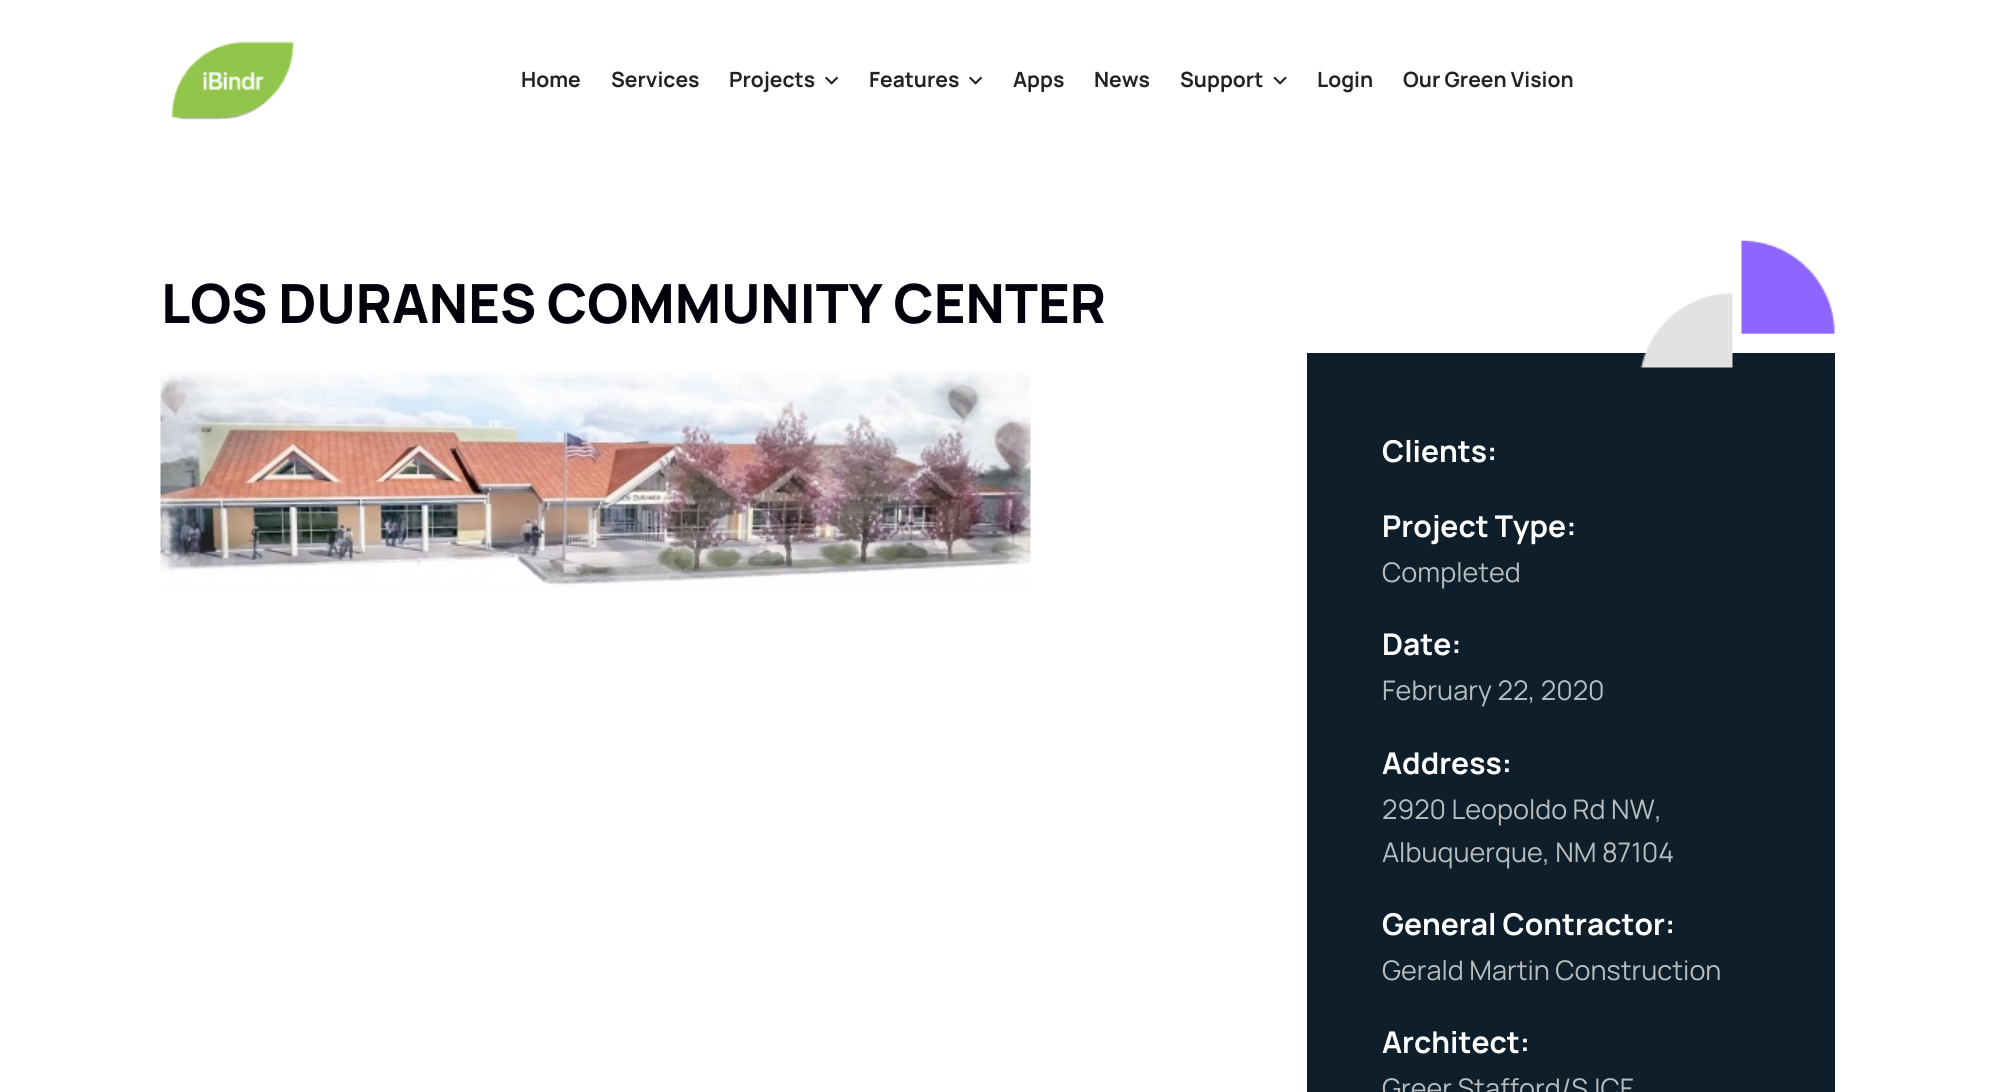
import math
import cairo

surface = cairo.ImageSurface(cairo.FORMAT_RGB24, 1994, 1092)
ctx = cairo.Context(surface)
options = cairo.FontOptions()
options.set_hint_metrics(cairo.HINT_METRICS_OFF)
options.set_hint_style(cairo.HINT_STYLE_NONE)
ctx.set_font_options(options)
ctx.set_miter_limit(4)


def picture(path, x, y, w, h):
    ctx.save()
    ctx.set_source_surface(cairo.ImageSurface.create_from_png(path), x, y)
    ctx.rectangle(x, y, w, h)
    ctx.fill()
    ctx.restore()


ctx.set_source_rgb(1, 1, 1)
ctx.paint()
picture("img1.png", 171, 41, 123, 79)
ctx.select_font_face("Manrope", cairo.FONT_SLANT_NORMAL, cairo.FONT_WEIGHT_BOLD)
ctx.set_font_size(21)
ctx.set_source_rgb(0.137, 0.137, 0.137)
ctx.move_to(521, 87)
ctx.show_text("Home")
ctx.move_to(611, 87)
ctx.show_text("Services")
ctx.move_to(729, 87)
ctx.show_text("Projects")
picture("img2.png", 825, 76, 14, 9)
ctx.move_to(869, 87)
ctx.show_text("Features")
picture("img2.png", 969, 76, 14, 9)
ctx.move_to(1013, 87)
ctx.show_text("Apps")
ctx.move_to(1094, 87)
ctx.show_text("News")
ctx.move_to(1180, 87)
ctx.show_text("Support")
picture("img3.png", 1273, 76, 14, 9)
ctx.move_to(1317, 87)
ctx.show_text("Login")
ctx.move_to(1403, 87)
ctx.show_text("Our Green Vision")
ctx.select_font_face("Manrope ExtraBold")
ctx.set_font_size(54)
ctx.set_source_rgb(0.016, 0, 0.043)
ctx.move_to(161, 323)
ctx.show_text("LOS DURANES COMMUNITY CENTER")
ctx.set_source_rgb(0.055, 0.118, 0.165)
ctx.rectangle(1307, 353, 528, 739)
ctx.fill()
picture("img4.png", 1640, 240, 195, 128)
picture("img5.png", 160, 370, 871, 222)
ctx.select_font_face("Manrope", cairo.FONT_SLANT_NORMAL, cairo.FONT_WEIGHT_BOLD)
ctx.set_font_size(30)
ctx.set_source_rgb(1, 1, 1)
ctx.move_to(1382, 462)
ctx.show_text("Clients:")
ctx.move_to(1382, 537)
ctx.show_text("Project Type:")
ctx.select_font_face("Manrope")
ctx.set_font_size(27)
ctx.set_source_rgb(0.718, 0.737, 0.749)
ctx.move_to(1382, 582)
ctx.show_text("Completed")
ctx.select_font_face("Manrope", cairo.FONT_SLANT_NORMAL, cairo.FONT_WEIGHT_BOLD)
ctx.set_font_size(30)
ctx.set_source_rgb(1, 1, 1)
ctx.move_to(1382, 655)
ctx.show_text("Date:")
ctx.select_font_face("Manrope")
ctx.set_font_size(27)
ctx.set_source_rgb(0.718, 0.737, 0.749)
ctx.move_to(1382, 700)
ctx.show_text("February 22, 2020")
ctx.select_font_face("Manrope", cairo.FONT_SLANT_NORMAL, cairo.FONT_WEIGHT_BOLD)
ctx.set_font_size(30)
ctx.set_source_rgb(1, 1, 1)
ctx.move_to(1382, 774)
ctx.show_text("Address:")
ctx.select_font_face("Manrope")
ctx.set_font_size(27)
ctx.set_source_rgb(0.718, 0.737, 0.749)
ctx.move_to(1382, 819)
ctx.show_text("2920 Leopoldo Rd NW,")
ctx.move_to(1382, 862)
ctx.show_text("Albuquerque, NM 87104")
ctx.select_font_face("Manrope", cairo.FONT_SLANT_NORMAL, cairo.FONT_WEIGHT_BOLD)
ctx.set_font_size(30)
ctx.set_source_rgb(1, 1, 1)
ctx.move_to(1382, 935)
ctx.show_text("General Contractor:")
ctx.select_font_face("Manrope")
ctx.set_font_size(27)
ctx.set_source_rgb(0.718, 0.737, 0.749)
ctx.move_to(1382, 980)
ctx.show_text("Gerald Martin Construction")
ctx.select_font_face("Manrope", cairo.FONT_SLANT_NORMAL, cairo.FONT_WEIGHT_BOLD)
ctx.set_font_size(30)
ctx.set_source_rgb(1, 1, 1)
ctx.move_to(1382, 1053)
ctx.show_text("Architect:")
ctx.select_font_face("Manrope")
ctx.set_font_size(27)
ctx.set_source_rgb(0.718, 0.737, 0.749)
ctx.move_to(1382, 1098)
ctx.show_text("Greer Stafford/SJCF")
surface.write_to_png("page.png")
